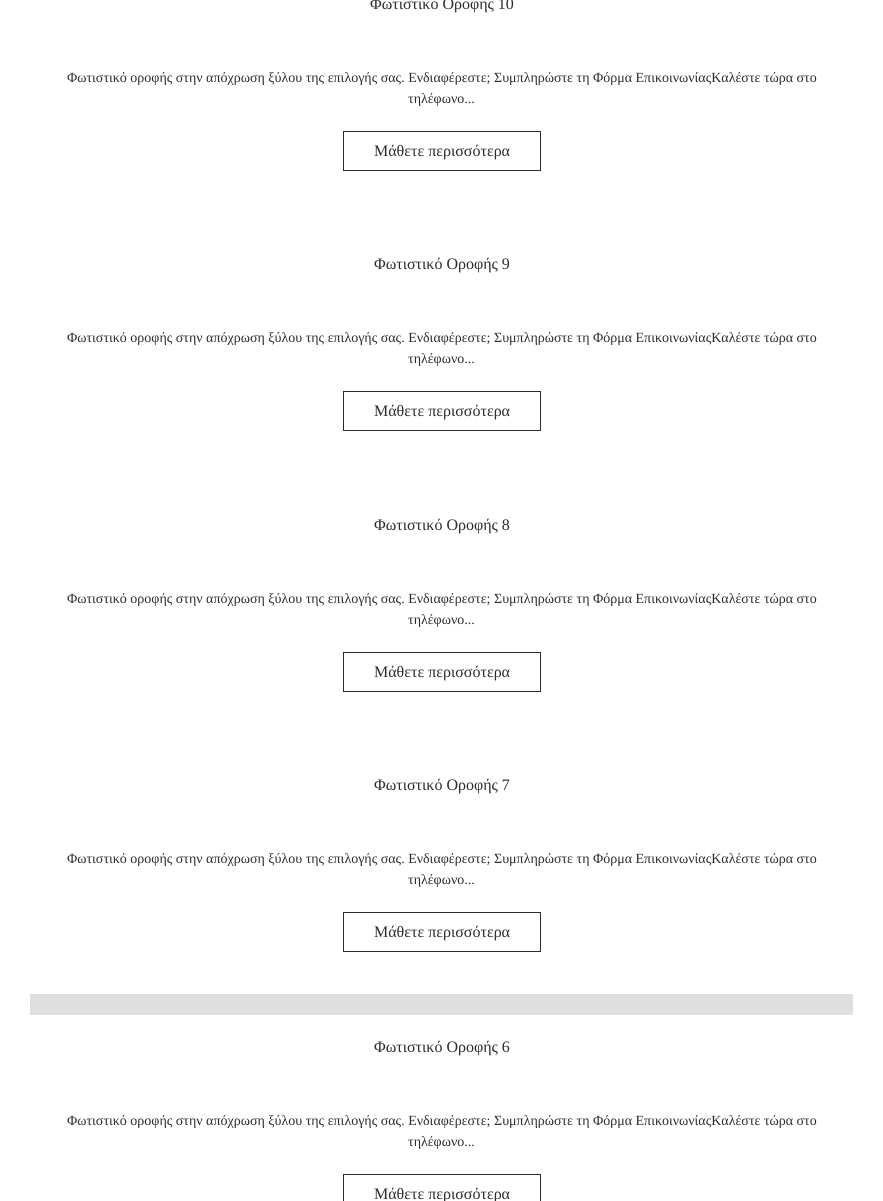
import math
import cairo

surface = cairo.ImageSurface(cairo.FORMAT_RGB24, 883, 1201)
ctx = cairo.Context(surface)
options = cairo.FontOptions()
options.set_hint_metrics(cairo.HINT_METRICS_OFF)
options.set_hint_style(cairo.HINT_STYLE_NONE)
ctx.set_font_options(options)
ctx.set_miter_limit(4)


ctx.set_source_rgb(1, 1, 1)
ctx.paint()
ctx.select_font_face("Liberation Serif")
ctx.set_font_size(16)
ctx.set_source_rgb(0.173, 0.173, 0.173)
ctx.move_to(370, 9)
ctx.show_text("Φωτιστικό Οροφής 10")
ctx.set_font_size(14)
ctx.move_to(67, 82)
ctx.show_text("Φωτιστικό οροφής στην απόχρωση ξύλου της επιλογής σας. Ενδιαφέρεστε; Συμπληρώστε τη Φόρμα ΕπικοινωνίαςΚαλέστε τώρα στο")
ctx.move_to(408, 103)
ctx.show_text("τηλέφωνο...")
ctx.rectangle(343.5, 131.5, 197, 39)
ctx.set_line_width(1)
ctx.stroke()
ctx.set_font_size(16)
ctx.move_to(374, 156)
ctx.show_text("Μάθετε περισσότερα")
ctx.move_to(374, 269)
ctx.show_text("Φωτιστικό Οροφής 9")
ctx.set_font_size(14)
ctx.move_to(67, 342)
ctx.show_text("Φωτιστικό οροφής στην απόχρωση ξύλου της επιλογής σας. Ενδιαφέρεστε; Συμπληρώστε τη Φόρμα ΕπικοινωνίαςΚαλέστε τώρα στο")
ctx.move_to(408, 363)
ctx.show_text("τηλέφωνο...")
ctx.rectangle(343.5, 391.5, 197, 39)
ctx.stroke()
ctx.set_font_size(16)
ctx.move_to(374, 416)
ctx.show_text("Μάθετε περισσότερα")
ctx.move_to(374, 530)
ctx.show_text("Φωτιστικό Οροφής 8")
ctx.set_font_size(14)
ctx.move_to(67, 603)
ctx.show_text("Φωτιστικό οροφής στην απόχρωση ξύλου της επιλογής σας. Ενδιαφέρεστε; Συμπληρώστε τη Φόρμα ΕπικοινωνίαςΚαλέστε τώρα στο")
ctx.move_to(408, 624)
ctx.show_text("τηλέφωνο...")
ctx.rectangle(343.5, 652.5, 197, 39)
ctx.stroke()
ctx.set_font_size(16)
ctx.move_to(374, 677)
ctx.show_text("Μάθετε περισσότερα")
ctx.move_to(374, 790)
ctx.show_text("Φωτιστικό Οροφής 7")
ctx.set_font_size(14)
ctx.move_to(67, 863)
ctx.show_text("Φωτιστικό οροφής στην απόχρωση ξύλου της επιλογής σας. Ενδιαφέρεστε; Συμπληρώστε τη Φόρμα ΕπικοινωνίαςΚαλέστε τώρα στο")
ctx.move_to(408, 884)
ctx.show_text("τηλέφωνο...")
ctx.rectangle(343.5, 912.5, 197, 39)
ctx.stroke()
ctx.set_font_size(16)
ctx.move_to(374, 937)
ctx.show_text("Μάθετε περισσότερα")
ctx.set_source_rgb(0.878, 0.871, 0.871)
ctx.rectangle(30, 994, 823, 21)
ctx.fill()
ctx.set_source_rgb(0.173, 0.173, 0.173)
ctx.move_to(374, 1052)
ctx.show_text("Φωτιστικό Οροφής 6")
ctx.set_font_size(14)
ctx.move_to(67, 1125)
ctx.show_text("Φωτιστικό οροφής στην απόχρωση ξύλου της επιλογής σας. Ενδιαφέρεστε; Συμπληρώστε τη Φόρμα ΕπικοινωνίαςΚαλέστε τώρα στο")
ctx.move_to(408, 1146)
ctx.show_text("τηλέφωνο...")
ctx.rectangle(343.5, 1174.5, 197, 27)
ctx.stroke()
ctx.set_font_size(16)
ctx.move_to(374, 1199)
ctx.show_text("Μάθετε περισσότερα")
surface.write_to_png("page.png")
